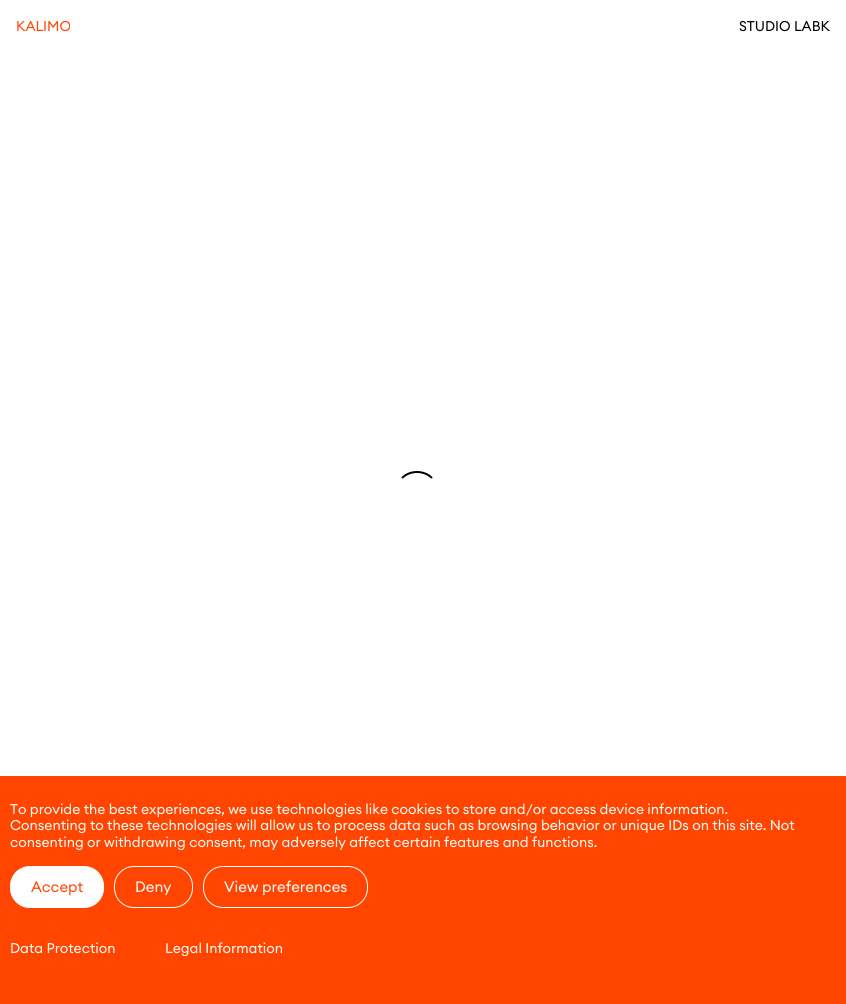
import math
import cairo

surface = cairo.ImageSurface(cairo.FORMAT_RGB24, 846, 1004)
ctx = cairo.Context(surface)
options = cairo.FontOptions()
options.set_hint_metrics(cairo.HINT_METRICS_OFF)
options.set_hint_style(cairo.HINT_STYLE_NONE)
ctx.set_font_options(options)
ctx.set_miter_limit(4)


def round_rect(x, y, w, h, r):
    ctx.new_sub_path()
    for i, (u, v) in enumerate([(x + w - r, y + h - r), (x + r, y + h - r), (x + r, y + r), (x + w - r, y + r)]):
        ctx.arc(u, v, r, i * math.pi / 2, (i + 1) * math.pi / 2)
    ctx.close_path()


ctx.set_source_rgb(1, 1, 1)
ctx.paint()
ctx.select_font_face("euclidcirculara")
ctx.set_font_size(14)
ctx.set_source_rgb(1, 0.271, 0)
ctx.move_to(16, 31)
ctx.show_text("KALIMO")
ctx.set_source_rgb(0, 0, 0)
ctx.move_to(739, 31)
ctx.show_text("STUDIO LABK")
ctx.new_path()
ctx.move_to(402, 478)
ctx.curve_to(410, 470, 424, 470, 432, 478)
ctx.move_to(402, 478)
ctx.curve_to(410, 470, 424, 470, 432, 478)
ctx.move_to(402, 478)
ctx.curve_to(410, 470, 424, 470, 432, 478)
ctx.move_to(402, 478)
ctx.curve_to(410, 470, 424, 470, 432, 478)
ctx.stroke()
ctx.set_source_rgb(1, 0.271, 0)
ctx.rectangle(0, 776, 846, 228)
ctx.fill()
ctx.set_source_rgb(1, 1, 1)
ctx.move_to(10, 814)
ctx.show_text("To provide the best experiences, we use technologies like cookies to store and/or access device information.")
ctx.move_to(10, 830)
ctx.show_text("Consenting to these technologies will allow us to process data such as browsing behavior or unique IDs on this site. Not")
ctx.move_to(10, 847)
ctx.show_text("consenting or withdrawing consent, may adversely affect certain features and functions.")
round_rect(10.5, 866.5, 93, 41, 19.5)
ctx.fill_preserve()
ctx.set_line_width(1)
ctx.stroke()
ctx.set_font_size(15)
ctx.set_source_rgb(1, 0.271, 0)
ctx.move_to(31, 892)
ctx.show_text("Accept")
round_rect(114.5, 866.5, 78, 41, 19.5)
ctx.set_source_rgb(1, 1, 1)
ctx.stroke()
ctx.move_to(135, 892)
ctx.show_text("Deny")
round_rect(203.5, 866.5, 164, 41, 19.5)
ctx.stroke()
ctx.move_to(224, 892)
ctx.show_text("View preferences")
ctx.set_font_size(14)
ctx.move_to(10, 953)
ctx.show_text("Data Protection")
ctx.move_to(165, 953)
ctx.show_text("Legal Information")
surface.write_to_png("page.png")
